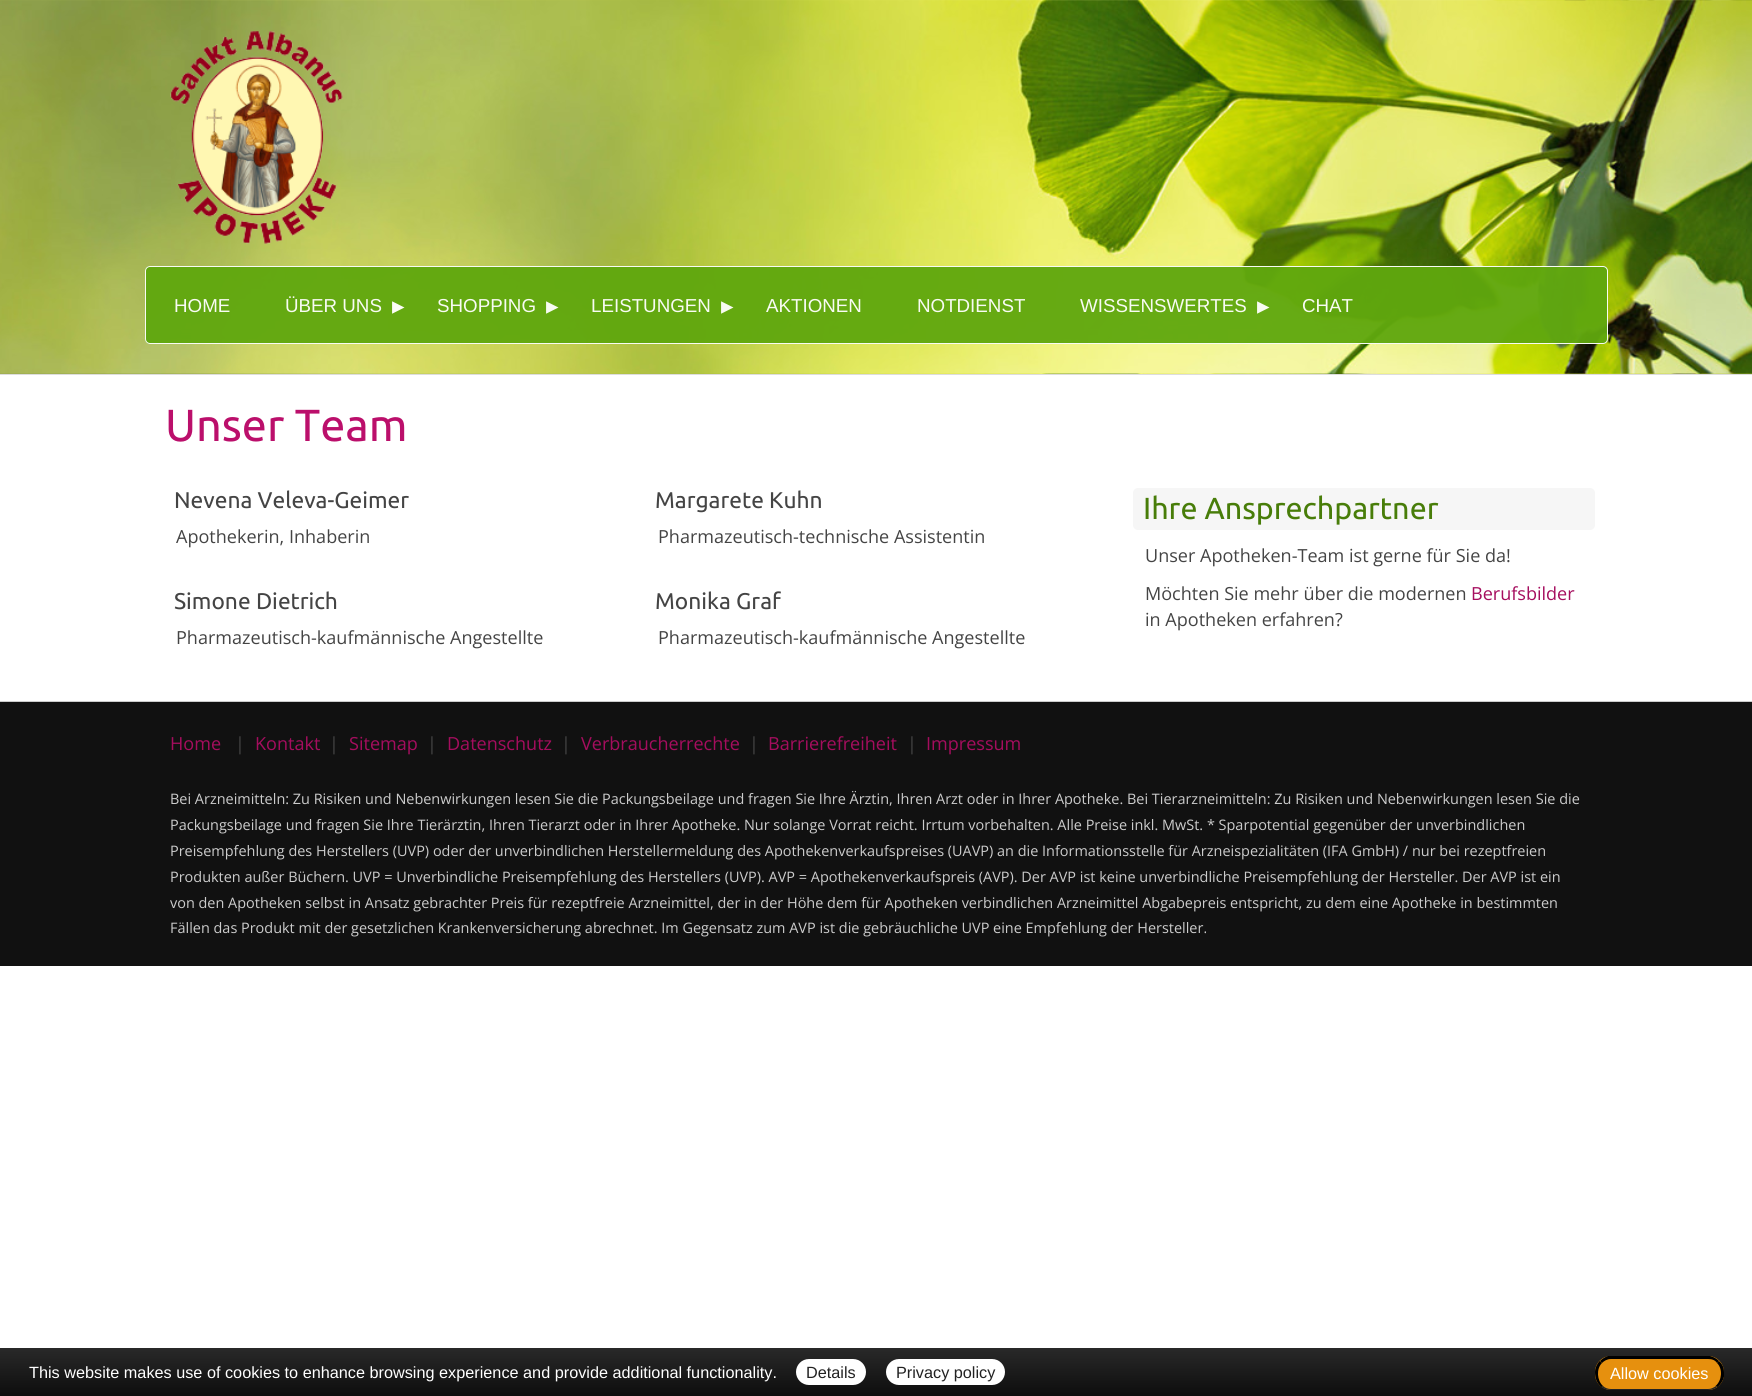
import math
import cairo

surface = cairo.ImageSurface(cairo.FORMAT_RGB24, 1752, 1396)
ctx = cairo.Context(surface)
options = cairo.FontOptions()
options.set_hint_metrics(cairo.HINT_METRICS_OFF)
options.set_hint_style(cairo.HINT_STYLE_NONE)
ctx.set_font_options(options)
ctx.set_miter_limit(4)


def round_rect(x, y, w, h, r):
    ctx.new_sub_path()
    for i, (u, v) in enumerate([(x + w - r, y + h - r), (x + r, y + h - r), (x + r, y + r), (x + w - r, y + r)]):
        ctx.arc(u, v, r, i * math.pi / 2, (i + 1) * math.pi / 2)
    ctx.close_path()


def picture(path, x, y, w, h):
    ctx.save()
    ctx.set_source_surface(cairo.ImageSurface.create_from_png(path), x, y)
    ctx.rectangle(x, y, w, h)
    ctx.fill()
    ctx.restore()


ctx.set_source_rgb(1, 1, 1)
ctx.paint()
picture("img1.png", 0, 0, 1752, 374)
ctx.set_source_rgb(0.867, 0.867, 0.867)
ctx.rectangle(0, 374, 1752, 1)
ctx.fill()
picture("img2.png", 170, 31, 173, 213)
ctx.set_source_rgba(0.376, 0.655, 0.055, 0.95)
round_rect(145, 266, 1463, 78, 5)
ctx.fill()
round_rect(145.5, 266.5, 1462, 77, 4.5)
ctx.set_source_rgba(1, 1, 1, 0.95)
ctx.set_line_width(1)
ctx.stroke()
ctx.select_font_face("Liberation Sans")
ctx.set_font_size(18.75)
ctx.set_source_rgb(0.969, 0.984, 0.953)
ctx.move_to(174, 312)
ctx.show_text("HOME")
ctx.move_to(285, 312)
ctx.show_text("ÜBER UNS")
ctx.select_font_face("DejaVu Sans")
ctx.set_font_size(25)
ctx.set_source_rgb(0.992, 0.992, 0.969)
ctx.move_to(392, 314)
ctx.show_text("▸")
ctx.select_font_face("Liberation Sans")
ctx.set_font_size(18.75)
ctx.set_source_rgb(0.969, 0.984, 0.953)
ctx.move_to(437, 312)
ctx.show_text("SHOPPING")
ctx.select_font_face("DejaVu Sans")
ctx.set_font_size(25)
ctx.move_to(546, 314)
ctx.show_text("▸")
ctx.select_font_face("Liberation Sans")
ctx.set_font_size(18.75)
ctx.move_to(591, 312)
ctx.show_text("LEISTUNGEN")
ctx.select_font_face("DejaVu Sans")
ctx.set_font_size(25)
ctx.move_to(721, 314)
ctx.show_text("▸")
ctx.select_font_face("Liberation Sans")
ctx.set_font_size(18.75)
ctx.move_to(766, 312)
ctx.show_text("AKTIONEN")
ctx.move_to(917, 312)
ctx.show_text("NOTDIENST")
ctx.move_to(1080, 312)
ctx.show_text("WISSENSWERTES")
ctx.select_font_face("DejaVu Sans")
ctx.set_font_size(25)
ctx.move_to(1257, 314)
ctx.show_text("▸")
ctx.select_font_face("Liberation Sans")
ctx.set_font_size(18.75)
ctx.move_to(1302, 312)
ctx.show_text("CHAT")
ctx.select_font_face("Ubuntu")
ctx.set_font_size(45)
ctx.set_source_rgb(0.733, 0.059, 0.42)
ctx.move_to(165, 441)
ctx.show_text("Unser Team")
ctx.set_font_size(22.75)
ctx.set_source_rgb(0.267, 0.267, 0.267)
ctx.move_to(174, 508)
ctx.show_text("Nevena Veleva-Geimer")
ctx.select_font_face("Open Sans")
ctx.set_font_size(18.05)
ctx.move_to(176, 543)
ctx.show_text("Apothekerin, Inhaberin")
ctx.select_font_face("Ubuntu")
ctx.set_font_size(22.75)
ctx.move_to(655, 508)
ctx.show_text("Margarete Kuhn")
ctx.select_font_face("Open Sans")
ctx.set_font_size(18.05)
ctx.move_to(658, 543)
ctx.show_text("Pharmazeutisch-technische Assistentin")
ctx.select_font_face("Ubuntu")
ctx.set_font_size(22.75)
ctx.move_to(174, 609)
ctx.show_text("Simone Dietrich")
ctx.select_font_face("Open Sans")
ctx.set_font_size(18.05)
ctx.move_to(176, 644)
ctx.show_text("Pharmazeutisch-kaufmännische Angestellte")
ctx.select_font_face("Ubuntu")
ctx.set_font_size(22.75)
ctx.move_to(655, 609)
ctx.show_text("Monika Graf")
ctx.select_font_face("Open Sans")
ctx.set_font_size(18.05)
ctx.move_to(658, 644)
ctx.show_text("Pharmazeutisch-kaufmännische Angestellte")
ctx.set_source_rgb(0.961, 0.961, 0.961)
round_rect(1133, 488, 462, 42, 5)
ctx.fill()
ctx.select_font_face("Ubuntu")
ctx.set_font_size(30.5)
ctx.set_source_rgb(0.282, 0.49, 0.039)
ctx.move_to(1143, 519)
ctx.show_text("Ihre Ansprechpartner")
ctx.select_font_face("Open Sans")
ctx.set_font_size(18.05)
ctx.set_source_rgb(0.267, 0.267, 0.267)
ctx.move_to(1145, 562)
ctx.show_text("Unser Apotheken-Team ist gerne für Sie da!")
ctx.move_to(1145, 600)
ctx.show_text("Möchten Sie mehr über die modernen")
ctx.set_source_rgb(0.647, 0.051, 0.369)
ctx.move_to(1471, 600)
ctx.show_text("Berufsbilder")
ctx.set_source_rgb(0.267, 0.267, 0.267)
ctx.move_to(1145, 626)
ctx.show_text("in Apotheken erfahren?")
ctx.set_source_rgb(0.067, 0.067, 0.067)
ctx.rectangle(0, 702, 1752, 264)
ctx.fill()
ctx.set_source_rgb(0.8, 0.8, 0.8)
ctx.rectangle(0, 701, 1752, 1)
ctx.fill()
ctx.set_source_rgb(0.647, 0.051, 0.369)
ctx.move_to(170, 750)
ctx.show_text("Home")
ctx.set_source_rgb(0.267, 0.267, 0.267)
ctx.move_to(235, 750)
ctx.show_text("|")
ctx.set_source_rgb(0.647, 0.051, 0.369)
ctx.move_to(255, 750)
ctx.show_text("Kontakt")
ctx.set_source_rgb(0.267, 0.267, 0.267)
ctx.move_to(329, 750)
ctx.show_text("|")
ctx.set_source_rgb(0.647, 0.051, 0.369)
ctx.move_to(349, 750)
ctx.show_text("Sitemap")
ctx.set_source_rgb(0.267, 0.267, 0.267)
ctx.move_to(427, 750)
ctx.show_text("|")
ctx.set_source_rgb(0.647, 0.051, 0.369)
ctx.move_to(447, 750)
ctx.show_text("Datenschutz")
ctx.set_source_rgb(0.267, 0.267, 0.267)
ctx.move_to(561, 750)
ctx.show_text("|")
ctx.set_source_rgb(0.647, 0.051, 0.369)
ctx.move_to(581, 750)
ctx.show_text("Verbraucherrechte")
ctx.set_source_rgb(0.267, 0.267, 0.267)
ctx.move_to(749, 750)
ctx.show_text("|")
ctx.set_source_rgb(0.647, 0.051, 0.369)
ctx.move_to(768, 750)
ctx.show_text("Barrierefreiheit")
ctx.set_source_rgb(0.267, 0.267, 0.267)
ctx.move_to(907, 750)
ctx.show_text("|")
ctx.set_source_rgb(0.647, 0.051, 0.369)
ctx.move_to(926, 750)
ctx.show_text("Impressum")
ctx.set_font_size(14.45)
ctx.set_source_rgb(0.8, 0.8, 0.8)
ctx.move_to(170, 804)
ctx.show_text("Bei Arzneimitteln: Zu Risiken und Nebenwirkungen lesen Sie die Packungsbeilage und fragen Sie Ihre Ärztin, Ihren Arzt oder in Ihrer Apotheke. Bei Tierarzneimitteln: Zu Risiken und Nebenwirkungen lesen Sie die")
ctx.move_to(170, 830)
ctx.show_text("Packungsbeilage und fragen Sie Ihre Tierärztin, Ihren Tierarzt oder in Ihrer Apotheke. Nur solange Vorrat reicht. Irrtum vorbehalten. Alle Preise inkl. MwSt. * Sparpotential gegenüber der unverbindlichen")
ctx.move_to(170, 856)
ctx.show_text("Preisempfehlung des Herstellers (UVP) oder der unverbindlichen Herstellermeldung des Apothekenverkaufspreises (UAVP) an die Informationsstelle für Arzneispezialitäten (IFA GmbH) / nur bei rezeptfreien")
ctx.move_to(170, 882)
ctx.show_text("Produkten außer Büchern. UVP = Unverbindliche Preisempfehlung des Herstellers (UVP). AVP = Apothekenverkaufspreis (AVP). Der AVP ist keine unverbindliche Preisempfehlung der Hersteller. Der AVP ist ein")
ctx.move_to(170, 908)
ctx.show_text("von den Apotheken selbst in Ansatz gebrachter Preis für rezeptfreie Arzneimittel, der in der Höhe dem für Apotheken verbindlichen Arzneimittel Abgabepreis entspricht, zu dem eine Apotheke in bestimmten")
ctx.move_to(170, 933)
ctx.show_text("Fällen das Produkt mit der gesetzlichen Krankenversicherung abrechnet. Im Gegensatz zum AVP ist die gebräuchliche UVP eine Empfehlung der Hersteller.")
gradient = cairo.LinearGradient(876, 1348, 876, 1396)
gradient.add_color_stop_rgba(0, 0.161, 0.161, 0.161, 1)
gradient.add_color_stop_rgba(1, 0.051, 0.051, 0.051, 1)
ctx.set_source(gradient)
ctx.rectangle(0, 1348, 1752, 48)
ctx.fill()
ctx.select_font_face("Liberation Sans")
ctx.set_font_size(16.25)
ctx.set_source_rgb(1, 1, 1)
ctx.move_to(29, 1378)
ctx.show_text("This website makes use of cookies to enhance browsing experience and provide additional functionality.")
round_rect(796, 1359, 70, 26, 13)
ctx.fill()
ctx.set_source_rgb(0.133, 0.133, 0.133)
ctx.move_to(806, 1378)
ctx.show_text("Details")
ctx.set_source_rgb(1, 1, 1)
round_rect(886, 1359, 119, 26, 13)
ctx.fill()
ctx.set_source_rgb(0.133, 0.133, 0.133)
ctx.move_to(896, 1378)
ctx.show_text("Privacy policy")
ctx.set_source_rgb(0.902, 0.565, 0.055)
round_rect(1595, 1356, 129, 34, 16)
ctx.fill()
ctx.set_source_rgb(0, 0, 0)
ctx.new_path()
ctx.move_to(1611, 1359)
ctx.curve_to(1607, 1359, 1604, 1361, 1602, 1363)
ctx.line_to(1600, 1361)
ctx.curve_to(1602, 1359, 1605, 1357, 1608, 1356)
ctx.line_to(1710, 1356)
ctx.curve_to(1714, 1357, 1717, 1359, 1719, 1361)
ctx.line_to(1717, 1363)
ctx.curve_to(1715, 1360, 1712, 1359, 1708, 1359)
ctx.close_path()
ctx.fill()
ctx.new_path()
ctx.move_to(1724, 1376.5)
ctx.curve_to(1723, 1381, 1720.5, 1384.5, 1717.5, 1387)
ctx.line_to(1715.5, 1386)
ctx.curve_to(1722, 1380.5, 1723, 1369, 1717, 1363)
ctx.line_to(1719, 1361)
ctx.curve_to(1724.5, 1366.5, 1724, 1370, 1724, 1376.5)
ctx.close_path()
ctx.fill()
ctx.set_source_rgb(0.133, 0.133, 0.133)
ctx.new_path()
ctx.move_to(1611, 1390)
ctx.line_to(1708, 1390)
ctx.curve_to(1711, 1390, 1715, 1389, 1717, 1387)
ctx.line_to(1716, 1386)
ctx.curve_to(1713, 1388, 1711, 1389, 1708, 1389)
ctx.line_to(1611, 1389)
ctx.curve_to(1608, 1389, 1605, 1388, 1603, 1386)
ctx.line_to(1601, 1387)
ctx.curve_to(1604, 1389, 1607, 1390, 1611, 1390)
ctx.close_path()
ctx.fill()
ctx.set_source_rgb(0, 0, 0)
ctx.new_path()
ctx.move_to(1595, 1372)
ctx.curve_to(1595, 1378, 1596.5, 1383, 1601.5, 1387)
ctx.line_to(1603, 1386)
ctx.curve_to(1597, 1380.5, 1596, 1369, 1602, 1363)
ctx.line_to(1599.5, 1361)
ctx.curve_to(1597, 1364, 1595, 1368, 1595, 1372)
ctx.close_path()
ctx.fill()
ctx.set_source_rgb(1, 1, 1)
ctx.move_to(1610, 1379)
ctx.show_text("Allow cookies")
surface.write_to_png("page.png")
